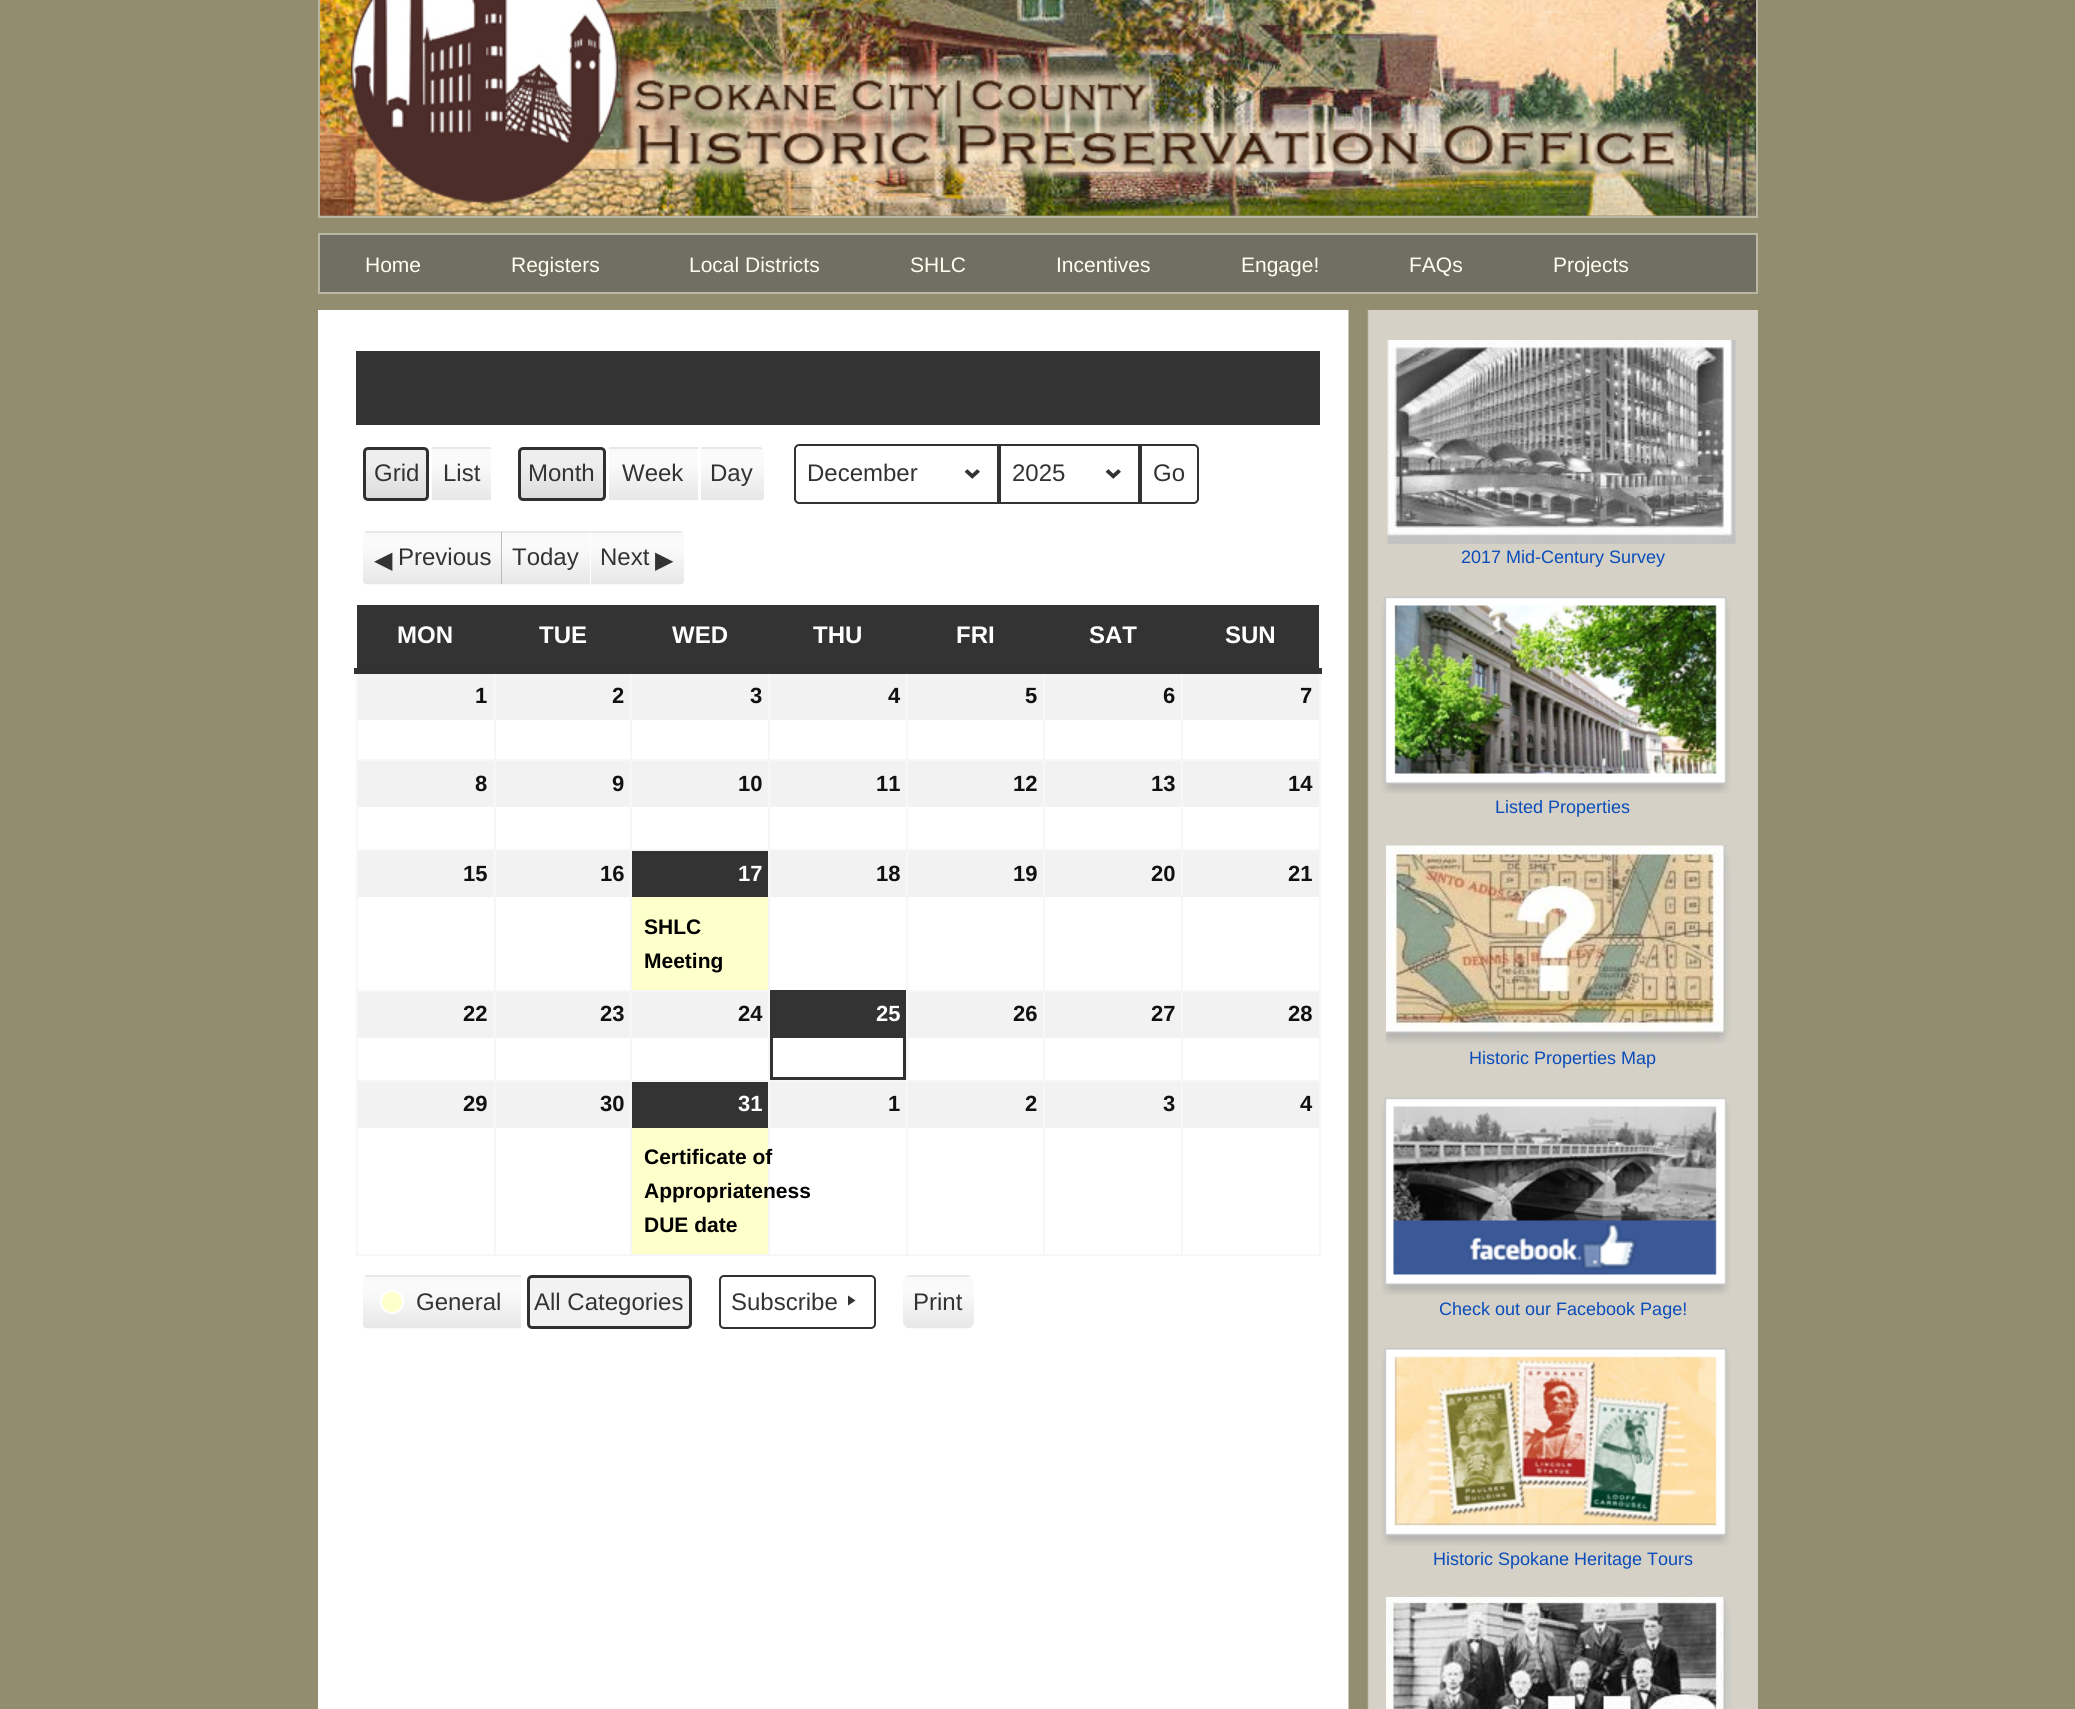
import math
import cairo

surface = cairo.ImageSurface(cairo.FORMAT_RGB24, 2075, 1709)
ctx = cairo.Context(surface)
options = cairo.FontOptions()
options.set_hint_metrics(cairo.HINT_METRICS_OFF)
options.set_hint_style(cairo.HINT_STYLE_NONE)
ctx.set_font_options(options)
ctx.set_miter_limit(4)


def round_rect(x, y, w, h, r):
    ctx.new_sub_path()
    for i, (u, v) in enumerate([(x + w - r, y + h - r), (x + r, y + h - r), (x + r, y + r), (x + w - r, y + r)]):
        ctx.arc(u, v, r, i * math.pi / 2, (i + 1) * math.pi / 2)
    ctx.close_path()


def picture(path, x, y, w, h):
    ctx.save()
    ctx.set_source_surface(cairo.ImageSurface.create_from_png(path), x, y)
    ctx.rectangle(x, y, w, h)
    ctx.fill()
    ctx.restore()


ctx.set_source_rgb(0.576, 0.553, 0.439)
ctx.paint()
picture("img1.png", 320, 0, 1436, 216)
ctx.rectangle(319, -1, 1438, 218)
ctx.set_source_rgb(0.722, 0.718, 0.639)
ctx.stroke()
ctx.set_source_rgb(0.443, 0.435, 0.388)
ctx.rectangle(319, 234, 1438, 59)
ctx.fill_preserve()
ctx.set_source_rgb(0.722, 0.718, 0.639)
ctx.stroke()
ctx.select_font_face("Liberation Sans")
ctx.set_font_size(21)
ctx.set_source_rgb(1, 1, 0.933)
ctx.move_to(365, 272)
ctx.show_text("Home")
ctx.move_to(511, 272)
ctx.show_text("Registers")
ctx.move_to(689, 272)
ctx.show_text("Local Districts")
ctx.move_to(910, 272)
ctx.show_text("SHLC")
ctx.move_to(1056, 272)
ctx.show_text("Incentives")
ctx.move_to(1241, 272)
ctx.show_text("Engage!")
ctx.move_to(1409, 272)
ctx.show_text("FAQs")
ctx.move_to(1553, 272)
ctx.show_text("Projects")
picture("img2.png", 318, 310, 1440, 1399)
ctx.set_source_rgb(0.2, 0.2, 0.2)
ctx.rectangle(356, 351, 964, 74)
ctx.fill()
ctx.set_source_rgb(0.949, 0.949, 0.949)
round_rect(363, 447, 66, 54, 5)
ctx.fill()
ctx.save()
round_rect(363, 447, 66, 54, 5)
ctx.clip()
gradient = cairo.LinearGradient(396, 500, 396, 449)
gradient.add_color_stop_rgba(0, 0.859, 0.859, 0.859, 0.95)
gradient.add_color_stop_rgba(0.7, 0.933, 0.933, 0.933, 0.95)
ctx.set_source(gradient)
ctx.rectangle(363, 449, 66, 51)
ctx.fill()
ctx.restore()
round_rect(364.5, 448.5, 63, 51, 3.5)
ctx.set_source_rgb(0.184, 0.188, 0.188)
ctx.set_line_width(3)
ctx.stroke()
ctx.set_font_size(24)
ctx.set_source_rgb(0.2, 0.2, 0.2)
ctx.move_to(374, 481)
ctx.show_text("Grid")
gradient = cairo.LinearGradient(461, 449, 461, 398)
gradient.add_color_stop_rgba(0, 0.906, 0.906, 0.906, 1)
gradient.add_color_stop_rgba(0.7, 0.98, 0.98, 0.98, 1)
ctx.set_source(gradient)
ctx.rectangle(432, 447, 59, 2)
ctx.fill()
gradient = cairo.LinearGradient(461, 500, 461, 449)
gradient.add_color_stop_rgba(0, 0.906, 0.906, 0.906, 1)
gradient.add_color_stop_rgba(0.7, 0.98, 0.98, 0.98, 1)
ctx.set_source(gradient)
ctx.rectangle(432, 449, 59, 51)
ctx.fill()
gradient = cairo.LinearGradient(461, 551, 461, 500)
gradient.add_color_stop_rgba(0, 0.906, 0.906, 0.906, 1)
gradient.add_color_stop_rgba(0.7, 0.98, 0.98, 0.98, 1)
ctx.set_source(gradient)
ctx.rectangle(432, 500, 59, 1)
ctx.fill()
ctx.set_source_rgb(0.2, 0.2, 0.2)
ctx.move_to(443, 481)
ctx.show_text("List")
ctx.set_source_rgb(0.949, 0.949, 0.949)
round_rect(518, 447, 88, 54, 5)
ctx.fill()
ctx.save()
round_rect(518, 447, 88, 54, 5)
ctx.clip()
gradient = cairo.LinearGradient(562, 500, 562, 449)
gradient.add_color_stop_rgba(0, 0.859, 0.859, 0.859, 0.95)
gradient.add_color_stop_rgba(0.7, 0.933, 0.933, 0.933, 0.95)
ctx.set_source(gradient)
ctx.rectangle(518, 449, 88, 51)
ctx.fill()
ctx.restore()
round_rect(519.5, 448.5, 85, 51, 3.5)
ctx.set_source_rgb(0.184, 0.188, 0.188)
ctx.stroke()
ctx.set_source_rgb(0.2, 0.2, 0.2)
ctx.move_to(528, 481)
ctx.show_text("Month")
gradient = cairo.LinearGradient(653, 449, 653, 398)
gradient.add_color_stop_rgba(0, 0.906, 0.906, 0.906, 1)
gradient.add_color_stop_rgba(0.7, 0.98, 0.98, 0.98, 1)
ctx.set_source(gradient)
ctx.rectangle(609, 447, 89, 2)
ctx.fill()
gradient = cairo.LinearGradient(653, 500, 653, 449)
gradient.add_color_stop_rgba(0, 0.906, 0.906, 0.906, 1)
gradient.add_color_stop_rgba(0.7, 0.98, 0.98, 0.98, 1)
ctx.set_source(gradient)
ctx.rectangle(609, 449, 89, 51)
ctx.fill()
gradient = cairo.LinearGradient(653, 551, 653, 500)
gradient.add_color_stop_rgba(0, 0.906, 0.906, 0.906, 1)
gradient.add_color_stop_rgba(0.7, 0.98, 0.98, 0.98, 1)
ctx.set_source(gradient)
ctx.rectangle(609, 500, 89, 1)
ctx.fill()
ctx.set_source_rgb(0.2, 0.2, 0.2)
ctx.move_to(622, 481)
ctx.show_text("Week")
ctx.save()
ctx.new_path()
ctx.move_to(701, 447)
ctx.line_to(759, 447)
ctx.curve_to(762, 447, 764, 449, 764, 452)
ctx.line_to(764, 496)
ctx.curve_to(764, 499, 762, 501, 759, 501)
ctx.line_to(701, 501)
ctx.close_path()
ctx.clip()
gradient = cairo.LinearGradient(732, 449, 732, 398)
gradient.add_color_stop_rgba(0, 0.906, 0.906, 0.906, 1)
gradient.add_color_stop_rgba(0.7, 0.98, 0.98, 0.98, 1)
ctx.set_source(gradient)
ctx.rectangle(701, 447, 63, 2)
ctx.fill()
gradient = cairo.LinearGradient(732, 500, 732, 449)
gradient.add_color_stop_rgba(0, 0.906, 0.906, 0.906, 1)
gradient.add_color_stop_rgba(0.7, 0.98, 0.98, 0.98, 1)
ctx.set_source(gradient)
ctx.rectangle(701, 449, 63, 51)
ctx.fill()
gradient = cairo.LinearGradient(732, 551, 732, 500)
gradient.add_color_stop_rgba(0, 0.906, 0.906, 0.906, 1)
gradient.add_color_stop_rgba(0.7, 0.98, 0.98, 0.98, 1)
ctx.set_source(gradient)
ctx.rectangle(701, 500, 63, 1)
ctx.fill()
ctx.restore()
ctx.move_to(710, 481)
ctx.show_text("Day")
picture("img3.png", 965, 469, 15, 10)
ctx.new_path()
ctx.move_to(799, 445)
ctx.line_to(998, 445)
ctx.line_to(998, 503)
ctx.line_to(799, 503)
ctx.curve_to(797, 503, 795, 501, 795, 499)
ctx.line_to(795, 449)
ctx.curve_to(795, 447, 797, 445, 799, 445)
ctx.close_path()
ctx.set_source_rgb(0.192, 0.196, 0.2)
ctx.set_line_width(2)
ctx.stroke()
ctx.set_source_rgb(0.2, 0.2, 0.2)
ctx.move_to(807, 481)
ctx.show_text("December")
picture("img3.png", 1106, 469, 15, 10)
ctx.rectangle(1000, 445, 139, 58)
ctx.set_source_rgb(0.192, 0.196, 0.2)
ctx.stroke()
ctx.set_source_rgb(0.2, 0.2, 0.2)
ctx.move_to(1012, 481)
ctx.show_text("2025")
ctx.new_path()
ctx.move_to(1141, 445)
ctx.line_to(1194, 445)
ctx.curve_to(1196, 445, 1198, 447, 1198, 449)
ctx.line_to(1198, 499)
ctx.curve_to(1198, 501, 1196, 503, 1194, 503)
ctx.line_to(1141, 503)
ctx.close_path()
ctx.set_source_rgb(0.192, 0.196, 0.2)
ctx.stroke()
ctx.set_source_rgb(0.2, 0.2, 0.2)
ctx.move_to(1153, 481)
ctx.show_text("Go")
ctx.save()
ctx.new_path()
ctx.move_to(368, 531)
ctx.line_to(503, 531)
ctx.line_to(503, 585)
ctx.line_to(368, 585)
ctx.curve_to(365, 585, 363, 583, 363, 580)
ctx.line_to(363, 536)
ctx.curve_to(363, 533, 365, 531, 368, 531)
ctx.close_path()
ctx.clip()
gradient = cairo.LinearGradient(433, 533, 433, 482)
gradient.add_color_stop_rgba(0, 0.906, 0.906, 0.906, 1)
gradient.add_color_stop_rgba(0.7, 0.98, 0.98, 0.98, 1)
ctx.set_source(gradient)
ctx.rectangle(363, 531, 140, 2)
ctx.fill()
gradient = cairo.LinearGradient(433, 584, 433, 533)
gradient.add_color_stop_rgba(0, 0.906, 0.906, 0.906, 1)
gradient.add_color_stop_rgba(0.7, 0.98, 0.98, 0.98, 1)
ctx.set_source(gradient)
ctx.rectangle(363, 533, 140, 51)
ctx.fill()
gradient = cairo.LinearGradient(433, 635, 433, 584)
gradient.add_color_stop_rgba(0, 0.906, 0.906, 0.906, 1)
gradient.add_color_stop_rgba(0.7, 0.98, 0.98, 0.98, 1)
ctx.set_source(gradient)
ctx.rectangle(363, 584, 140, 1)
ctx.fill()
ctx.restore()
ctx.set_source_rgb(0.733, 0.733, 0.733)
ctx.rectangle(501, 532, 1, 52)
ctx.fill()
ctx.select_font_face("DejaVu Sans")
ctx.set_source_rgb(0.2, 0.2, 0.2)
ctx.move_to(374, 568)
ctx.show_text("◀")
ctx.select_font_face("Liberation Sans")
ctx.move_to(398, 565)
ctx.show_text("Previous")
gradient = cairo.LinearGradient(546, 533, 546, 482)
gradient.add_color_stop_rgba(0, 0.906, 0.906, 0.906, 1)
gradient.add_color_stop_rgba(0.7, 0.98, 0.98, 0.98, 1)
ctx.set_source(gradient)
ctx.rectangle(503, 531, 87, 2)
ctx.fill()
gradient = cairo.LinearGradient(546, 584, 546, 533)
gradient.add_color_stop_rgba(0, 0.906, 0.906, 0.906, 1)
gradient.add_color_stop_rgba(0.7, 0.98, 0.98, 0.98, 1)
ctx.set_source(gradient)
ctx.rectangle(503, 533, 87, 51)
ctx.fill()
gradient = cairo.LinearGradient(546, 635, 546, 584)
gradient.add_color_stop_rgba(0, 0.906, 0.906, 0.906, 1)
gradient.add_color_stop_rgba(0.7, 0.98, 0.98, 0.98, 1)
ctx.set_source(gradient)
ctx.rectangle(503, 584, 87, 1)
ctx.fill()
ctx.set_source_rgb(0.2, 0.2, 0.2)
ctx.move_to(512, 565)
ctx.show_text("Today")
ctx.save()
ctx.new_path()
ctx.move_to(590, 531)
ctx.line_to(679, 531)
ctx.curve_to(682, 531, 684, 533, 684, 536)
ctx.line_to(684, 580)
ctx.curve_to(684, 583, 682, 585, 679, 585)
ctx.line_to(590, 585)
ctx.close_path()
ctx.clip()
gradient = cairo.LinearGradient(637, 533, 637, 482)
gradient.add_color_stop_rgba(0, 0.906, 0.906, 0.906, 1)
gradient.add_color_stop_rgba(0.7, 0.98, 0.98, 0.98, 1)
ctx.set_source(gradient)
ctx.rectangle(590, 531, 94, 2)
ctx.fill()
gradient = cairo.LinearGradient(637, 584, 637, 533)
gradient.add_color_stop_rgba(0, 0.906, 0.906, 0.906, 1)
gradient.add_color_stop_rgba(0.7, 0.98, 0.98, 0.98, 1)
ctx.set_source(gradient)
ctx.rectangle(591, 533, 93, 51)
ctx.fill()
gradient = cairo.LinearGradient(637, 635, 637, 584)
gradient.add_color_stop_rgba(0, 0.906, 0.906, 0.906, 1)
gradient.add_color_stop_rgba(0.7, 0.98, 0.98, 0.98, 1)
ctx.set_source(gradient)
ctx.rectangle(590, 584, 94, 1)
ctx.fill()
ctx.restore()
ctx.set_source_rgb(1, 1, 1)
ctx.rectangle(590, 532, 1, 52)
ctx.fill()
ctx.set_source_rgb(0.2, 0.2, 0.2)
ctx.move_to(600, 565)
ctx.show_text("Next")
ctx.select_font_face("DejaVu Sans")
ctx.move_to(655, 568)
ctx.show_text("▶")
ctx.set_source_rgb(0.965, 0.965, 0.965)
ctx.rectangle(1181, 759, 139, 2)
ctx.fill()
ctx.rectangle(1181, 849, 139, 2)
ctx.fill()
ctx.rectangle(1181, 990, 139, 2)
ctx.fill()
ctx.rectangle(1181, 1080, 139, 2)
ctx.fill()
ctx.rectangle(1319, 1080, 2, 176)
ctx.fill()
ctx.rectangle(1181, 1254, 139, 2)
ctx.fill()
ctx.rectangle(1181, 1080, 2, 176)
ctx.fill()
ctx.rectangle(1043, 1080, 139, 2)
ctx.fill()
ctx.rectangle(1181, 990, 2, 92)
ctx.fill()
ctx.rectangle(1043, 990, 139, 2)
ctx.fill()
ctx.rectangle(1181, 849, 2, 143)
ctx.fill()
ctx.rectangle(1043, 849, 139, 2)
ctx.fill()
ctx.rectangle(1181, 759, 2, 92)
ctx.fill()
ctx.rectangle(1043, 759, 139, 2)
ctx.fill()
ctx.rectangle(1043, 1254, 139, 2)
ctx.fill()
ctx.rectangle(1043, 1080, 2, 176)
ctx.fill()
ctx.rectangle(906, 1080, 138, 2)
ctx.fill()
ctx.rectangle(1043, 990, 2, 92)
ctx.fill()
ctx.rectangle(906, 990, 138, 2)
ctx.fill()
ctx.rectangle(1043, 849, 2, 143)
ctx.fill()
ctx.rectangle(906, 849, 138, 2)
ctx.fill()
ctx.rectangle(1043, 759, 2, 92)
ctx.fill()
ctx.rectangle(906, 759, 138, 2)
ctx.fill()
ctx.rectangle(906, 1254, 138, 2)
ctx.fill()
ctx.rectangle(906, 1080, 2, 176)
ctx.fill()
ctx.rectangle(768, 1080, 140, 2)
ctx.fill()
ctx.rectangle(906, 990, 2, 92)
ctx.fill()
ctx.rectangle(906, 849, 2, 143)
ctx.fill()
ctx.rectangle(768, 849, 140, 2)
ctx.fill()
ctx.rectangle(906, 759, 2, 92)
ctx.fill()
ctx.rectangle(768, 759, 140, 2)
ctx.fill()
ctx.rectangle(768, 1254, 140, 2)
ctx.fill()
ctx.rectangle(768, 1080, 2, 176)
ctx.fill()
ctx.rectangle(630, 1080, 140, 2)
ctx.fill()
ctx.rectangle(768, 990, 2, 92)
ctx.fill()
ctx.rectangle(630, 990, 140, 2)
ctx.fill()
ctx.rectangle(768, 849, 2, 143)
ctx.fill()
ctx.rectangle(630, 849, 140, 2)
ctx.fill()
ctx.rectangle(768, 759, 2, 92)
ctx.fill()
ctx.rectangle(630, 759, 140, 2)
ctx.fill()
ctx.rectangle(630, 1254, 140, 2)
ctx.fill()
ctx.rectangle(630, 1080, 2, 176)
ctx.fill()
ctx.rectangle(494, 1080, 138, 2)
ctx.fill()
ctx.rectangle(630, 990, 2, 92)
ctx.fill()
ctx.rectangle(494, 990, 138, 2)
ctx.fill()
ctx.rectangle(630, 849, 2, 143)
ctx.fill()
ctx.rectangle(494, 849, 138, 2)
ctx.fill()
ctx.rectangle(630, 759, 2, 92)
ctx.fill()
ctx.rectangle(494, 759, 138, 2)
ctx.fill()
ctx.rectangle(494, 1254, 138, 2)
ctx.fill()
ctx.rectangle(494, 1080, 2, 176)
ctx.fill()
ctx.rectangle(356, 1080, 139, 2)
ctx.fill()
ctx.rectangle(494, 990, 2, 92)
ctx.fill()
ctx.rectangle(356, 990, 139, 2)
ctx.fill()
ctx.rectangle(494, 849, 2, 143)
ctx.fill()
ctx.rectangle(356, 849, 139, 2)
ctx.fill()
ctx.rectangle(494, 759, 2, 92)
ctx.fill()
ctx.rectangle(356, 759, 139, 2)
ctx.fill()
ctx.rectangle(494, 669, 2, 92)
ctx.fill()
ctx.rectangle(630, 669, 2, 92)
ctx.fill()
ctx.rectangle(768, 669, 2, 92)
ctx.fill()
ctx.rectangle(906, 669, 2, 92)
ctx.fill()
ctx.rectangle(1043, 669, 2, 92)
ctx.fill()
ctx.rectangle(1181, 669, 2, 92)
ctx.fill()
ctx.rectangle(356, 1254, 139, 2)
ctx.fill()
ctx.rectangle(356, 1080, 2, 176)
ctx.fill()
ctx.rectangle(356, 990, 2, 92)
ctx.fill()
ctx.rectangle(356, 849, 2, 143)
ctx.fill()
ctx.rectangle(356, 669, 2, 182)
ctx.fill()
ctx.rectangle(1319, 990, 2, 92)
ctx.fill()
ctx.rectangle(1319, 849, 2, 143)
ctx.fill()
ctx.rectangle(1319, 669, 2, 182)
ctx.fill()
ctx.set_source_rgb(0.192, 0.196, 0.2)
ctx.rectangle(354, 668, 968, 6)
ctx.fill()
ctx.set_source_rgb(0.2, 0.2, 0.2)
ctx.rectangle(357, 605, 962, 63)
ctx.fill()
ctx.select_font_face("Liberation Sans", cairo.FONT_SLANT_NORMAL, cairo.FONT_WEIGHT_BOLD)
ctx.set_source_rgb(1, 1, 1)
ctx.move_to(397, 643)
ctx.show_text("MON")
ctx.move_to(539, 643)
ctx.show_text("TUE")
ctx.move_to(672, 643)
ctx.show_text("WED")
ctx.move_to(813, 643)
ctx.show_text("THU")
ctx.move_to(956, 643)
ctx.show_text("FRI")
ctx.move_to(1089, 643)
ctx.show_text("SAT")
ctx.move_to(1225, 643)
ctx.show_text("SUN")
ctx.set_source_rgb(0.949, 0.949, 0.949)
ctx.rectangle(358, 674, 136, 46)
ctx.fill()
ctx.set_font_size(22)
ctx.set_source_rgb(0.067, 0.067, 0.067)
ctx.move_to(475, 703)
ctx.show_text("1")
ctx.set_source_rgb(0.949, 0.949, 0.949)
ctx.rectangle(496, 674, 134, 46)
ctx.fill()
ctx.set_source_rgb(0.067, 0.067, 0.067)
ctx.move_to(612, 703)
ctx.show_text("2")
ctx.set_source_rgb(0.949, 0.949, 0.949)
ctx.rectangle(632, 674, 136, 46)
ctx.fill()
ctx.set_source_rgb(0.067, 0.067, 0.067)
ctx.move_to(750, 703)
ctx.show_text("3")
ctx.set_source_rgb(0.949, 0.949, 0.949)
ctx.rectangle(770, 674, 136, 46)
ctx.fill()
ctx.set_source_rgb(0.067, 0.067, 0.067)
ctx.move_to(888, 703)
ctx.show_text("4")
ctx.set_source_rgb(0.949, 0.949, 0.949)
ctx.rectangle(908, 674, 135, 46)
ctx.fill()
ctx.set_source_rgb(0.067, 0.067, 0.067)
ctx.move_to(1025, 703)
ctx.show_text("5")
ctx.set_source_rgb(0.949, 0.949, 0.949)
ctx.rectangle(1045, 674, 136, 46)
ctx.fill()
ctx.set_source_rgb(0.067, 0.067, 0.067)
ctx.move_to(1163, 703)
ctx.show_text("6")
ctx.set_source_rgb(0.949, 0.949, 0.949)
ctx.rectangle(1183, 674, 136, 46)
ctx.fill()
ctx.set_source_rgb(0.067, 0.067, 0.067)
ctx.move_to(1300, 703)
ctx.show_text("7")
ctx.set_source_rgb(0.949, 0.949, 0.949)
ctx.rectangle(358, 761, 136, 46)
ctx.fill()
ctx.set_source_rgb(0.067, 0.067, 0.067)
ctx.move_to(475, 791)
ctx.show_text("8")
ctx.set_source_rgb(0.949, 0.949, 0.949)
ctx.rectangle(496, 761, 134, 46)
ctx.fill()
ctx.set_source_rgb(0.067, 0.067, 0.067)
ctx.move_to(612, 791)
ctx.show_text("9")
ctx.set_source_rgb(0.949, 0.949, 0.949)
ctx.rectangle(632, 761, 136, 46)
ctx.fill()
ctx.set_source_rgb(0.067, 0.067, 0.067)
ctx.move_to(738, 791)
ctx.show_text("10")
ctx.set_source_rgb(0.949, 0.949, 0.949)
ctx.rectangle(770, 761, 136, 46)
ctx.fill()
ctx.set_source_rgb(0.067, 0.067, 0.067)
ctx.move_to(876, 791)
ctx.show_text("11")
ctx.set_source_rgb(0.949, 0.949, 0.949)
ctx.rectangle(908, 761, 135, 46)
ctx.fill()
ctx.set_source_rgb(0.067, 0.067, 0.067)
ctx.move_to(1013, 791)
ctx.show_text("12")
ctx.set_source_rgb(0.949, 0.949, 0.949)
ctx.rectangle(1045, 761, 136, 46)
ctx.fill()
ctx.set_source_rgb(0.067, 0.067, 0.067)
ctx.move_to(1151, 791)
ctx.show_text("13")
ctx.set_source_rgb(0.949, 0.949, 0.949)
ctx.rectangle(1183, 761, 136, 46)
ctx.fill()
ctx.set_source_rgb(0.067, 0.067, 0.067)
ctx.move_to(1288, 791)
ctx.show_text("14")
ctx.set_source_rgb(0.949, 0.949, 0.949)
ctx.rectangle(358, 851, 136, 46)
ctx.fill()
ctx.set_source_rgb(0.067, 0.067, 0.067)
ctx.move_to(463, 881)
ctx.show_text("15")
ctx.set_source_rgb(0.949, 0.949, 0.949)
ctx.rectangle(496, 851, 134, 46)
ctx.fill()
ctx.set_source_rgb(0.067, 0.067, 0.067)
ctx.move_to(600, 881)
ctx.show_text("16")
ctx.set_source_rgb(0.2, 0.2, 0.2)
ctx.rectangle(632, 851, 136, 46)
ctx.fill()
ctx.set_source_rgb(1, 1, 1)
ctx.move_to(738, 881)
ctx.show_text("17")
ctx.set_source_rgb(1, 1, 0.8)
ctx.rectangle(632, 897, 136, 93)
ctx.fill()
ctx.set_font_size(21)
ctx.set_source_rgb(0, 0, 0)
ctx.move_to(644, 934)
ctx.show_text("SHLC")
ctx.move_to(644, 968)
ctx.show_text("Meeting")
ctx.set_source_rgb(0.949, 0.949, 0.949)
ctx.rectangle(770, 851, 136, 46)
ctx.fill()
ctx.set_font_size(22)
ctx.set_source_rgb(0.067, 0.067, 0.067)
ctx.move_to(876, 881)
ctx.show_text("18")
ctx.set_source_rgb(0.949, 0.949, 0.949)
ctx.rectangle(908, 851, 135, 46)
ctx.fill()
ctx.set_source_rgb(0.067, 0.067, 0.067)
ctx.move_to(1013, 881)
ctx.show_text("19")
ctx.set_source_rgb(0.949, 0.949, 0.949)
ctx.rectangle(1045, 851, 136, 46)
ctx.fill()
ctx.set_source_rgb(0.067, 0.067, 0.067)
ctx.move_to(1151, 881)
ctx.show_text("20")
ctx.set_source_rgb(0.949, 0.949, 0.949)
ctx.rectangle(1183, 851, 136, 46)
ctx.fill()
ctx.set_source_rgb(0.067, 0.067, 0.067)
ctx.move_to(1288, 881)
ctx.show_text("21")
ctx.set_source_rgb(0.949, 0.949, 0.949)
ctx.rectangle(358, 992, 136, 46)
ctx.fill()
ctx.set_source_rgb(0.067, 0.067, 0.067)
ctx.move_to(463, 1021)
ctx.show_text("22")
ctx.set_source_rgb(0.949, 0.949, 0.949)
ctx.rectangle(496, 992, 134, 46)
ctx.fill()
ctx.set_source_rgb(0.067, 0.067, 0.067)
ctx.move_to(600, 1021)
ctx.show_text("23")
ctx.set_source_rgb(0.949, 0.949, 0.949)
ctx.rectangle(632, 992, 136, 46)
ctx.fill()
ctx.set_source_rgb(0.067, 0.067, 0.067)
ctx.move_to(738, 1021)
ctx.show_text("24")
ctx.set_source_rgb(0.2, 0.2, 0.2)
ctx.rectangle(773, 993, 130, 45)
ctx.fill()
ctx.rectangle(771.5, 991.5, 133, 87)
ctx.set_source_rgb(0.192, 0.196, 0.2)
ctx.set_line_width(3)
ctx.stroke()
ctx.set_source_rgb(1, 1, 1)
ctx.move_to(876, 1021)
ctx.show_text("25")
ctx.set_source_rgb(0.949, 0.949, 0.949)
ctx.rectangle(908, 992, 135, 46)
ctx.fill()
ctx.set_source_rgb(0.067, 0.067, 0.067)
ctx.move_to(1013, 1021)
ctx.show_text("26")
ctx.set_source_rgb(0.949, 0.949, 0.949)
ctx.rectangle(1045, 992, 136, 46)
ctx.fill()
ctx.set_source_rgb(0.067, 0.067, 0.067)
ctx.move_to(1151, 1021)
ctx.show_text("27")
ctx.set_source_rgb(0.949, 0.949, 0.949)
ctx.rectangle(1183, 992, 136, 46)
ctx.fill()
ctx.set_source_rgb(0.067, 0.067, 0.067)
ctx.move_to(1288, 1021)
ctx.show_text("28")
ctx.set_source_rgb(0.949, 0.949, 0.949)
ctx.rectangle(358, 1082, 136, 46)
ctx.fill()
ctx.set_source_rgb(0.067, 0.067, 0.067)
ctx.move_to(463, 1111)
ctx.show_text("29")
ctx.set_source_rgb(0.949, 0.949, 0.949)
ctx.rectangle(496, 1082, 134, 46)
ctx.fill()
ctx.set_source_rgb(0.067, 0.067, 0.067)
ctx.move_to(600, 1111)
ctx.show_text("30")
ctx.set_source_rgb(0.2, 0.2, 0.2)
ctx.rectangle(632, 1082, 136, 46)
ctx.fill()
ctx.set_source_rgb(1, 1, 1)
ctx.move_to(738, 1111)
ctx.show_text("31")
ctx.set_source_rgb(1, 1, 0.8)
ctx.rectangle(632, 1128, 136, 126)
ctx.fill()
ctx.set_font_size(21)
ctx.set_source_rgb(0, 0, 0)
ctx.move_to(644, 1164)
ctx.show_text("Certificate of")
ctx.move_to(644, 1198)
ctx.show_text("Appropriateness")
ctx.move_to(644, 1232)
ctx.show_text("DUE date")
ctx.set_source_rgb(0.949, 0.949, 0.949)
ctx.rectangle(770, 1082, 136, 46)
ctx.fill()
ctx.set_font_size(22)
ctx.set_source_rgb(0.067, 0.067, 0.067)
ctx.move_to(888, 1111)
ctx.show_text("1")
ctx.set_source_rgb(0.949, 0.949, 0.949)
ctx.rectangle(908, 1082, 135, 46)
ctx.fill()
ctx.set_source_rgb(0.067, 0.067, 0.067)
ctx.move_to(1025, 1111)
ctx.show_text("2")
ctx.set_source_rgb(0.949, 0.949, 0.949)
ctx.rectangle(1045, 1082, 136, 46)
ctx.fill()
ctx.set_source_rgb(0.067, 0.067, 0.067)
ctx.move_to(1163, 1111)
ctx.show_text("3")
ctx.set_source_rgb(0.949, 0.949, 0.949)
ctx.rectangle(1183, 1082, 136, 46)
ctx.fill()
ctx.set_source_rgb(0.067, 0.067, 0.067)
ctx.move_to(1300, 1111)
ctx.show_text("4")
ctx.save()
ctx.new_path()
ctx.move_to(368, 1275)
ctx.line_to(521, 1275)
ctx.line_to(521, 1329)
ctx.line_to(368, 1329)
ctx.curve_to(365, 1329, 363, 1327, 363, 1324)
ctx.line_to(363, 1280)
ctx.curve_to(363, 1277, 365, 1275, 368, 1275)
ctx.close_path()
ctx.clip()
gradient = cairo.LinearGradient(442, 1277, 442, 1226)
gradient.add_color_stop_rgba(0, 0.906, 0.906, 0.906, 1)
gradient.add_color_stop_rgba(0.7, 0.98, 0.98, 0.98, 1)
ctx.set_source(gradient)
ctx.rectangle(363, 1275, 158, 2)
ctx.fill()
gradient = cairo.LinearGradient(442, 1328, 442, 1277)
gradient.add_color_stop_rgba(0, 0.906, 0.906, 0.906, 1)
gradient.add_color_stop_rgba(0.7, 0.98, 0.98, 0.98, 1)
ctx.set_source(gradient)
ctx.rectangle(363, 1277, 158, 51)
ctx.fill()
gradient = cairo.LinearGradient(442, 1379, 442, 1328)
gradient.add_color_stop_rgba(0, 0.906, 0.906, 0.906, 1)
gradient.add_color_stop_rgba(0.7, 0.98, 0.98, 0.98, 1)
ctx.set_source(gradient)
ctx.rectangle(363, 1328, 158, 1)
ctx.fill()
ctx.restore()
ctx.set_source_rgb(1, 1, 0.8)
ctx.arc(392, 1302, 11, 0, 2 * math.pi)
ctx.fill_preserve()
ctx.set_source_rgb(1, 1, 1)
ctx.set_line_width(2)
ctx.stroke()
ctx.select_font_face("Liberation Sans")
ctx.set_font_size(24)
ctx.set_source_rgb(0.2, 0.2, 0.2)
ctx.move_to(416, 1310)
ctx.show_text("General")
ctx.set_source_rgb(0.949, 0.949, 0.949)
round_rect(527, 1275, 165, 54, 5)
ctx.fill()
round_rect(528.5, 1276.5, 162, 51, 3.5)
ctx.set_source_rgb(0.184, 0.188, 0.188)
ctx.set_line_width(3)
ctx.stroke()
ctx.set_source_rgb(0.2, 0.2, 0.2)
ctx.move_to(534, 1310)
ctx.show_text("All Categories")
round_rect(720, 1276, 155, 52, 4)
ctx.set_source_rgb(0.192, 0.196, 0.2)
ctx.set_line_width(2)
ctx.stroke()
ctx.set_source_rgb(0.2, 0.2, 0.2)
ctx.move_to(731, 1310)
ctx.show_text("Subscribe")
ctx.set_source_rgb(0.192, 0.196, 0.2)
ctx.new_path()
ctx.move_to(848, 1295.5)
ctx.line_to(855.5, 1300.5)
ctx.line_to(848, 1305.5)
ctx.close_path()
ctx.fill()
ctx.save()
round_rect(903, 1275, 71, 54, 8)
ctx.clip()
gradient = cairo.LinearGradient(938, 1277, 938, 1226)
gradient.add_color_stop_rgba(0, 0.906, 0.906, 0.906, 1)
gradient.add_color_stop_rgba(0.7, 0.98, 0.98, 0.98, 1)
ctx.set_source(gradient)
ctx.rectangle(903, 1275, 71, 2)
ctx.fill()
gradient = cairo.LinearGradient(938, 1328, 938, 1277)
gradient.add_color_stop_rgba(0, 0.906, 0.906, 0.906, 1)
gradient.add_color_stop_rgba(0.7, 0.98, 0.98, 0.98, 1)
ctx.set_source(gradient)
ctx.rectangle(903, 1277, 71, 51)
ctx.fill()
gradient = cairo.LinearGradient(938, 1379, 938, 1328)
gradient.add_color_stop_rgba(0, 0.906, 0.906, 0.906, 1)
gradient.add_color_stop_rgba(0.7, 0.98, 0.98, 0.98, 1)
ctx.set_source(gradient)
ctx.rectangle(903, 1328, 71, 1)
ctx.fill()
ctx.restore()
ctx.set_source_rgb(0.2, 0.2, 0.2)
ctx.move_to(913, 1310)
ctx.show_text("Print")
picture("img4.png", 1387, 340, 349, 204)
ctx.set_font_size(18)
ctx.set_source_rgb(0.039, 0.298, 0.729)
ctx.move_to(1461, 563)
ctx.show_text("2017 Mid-Century Survey")
picture("img5.png", 1381, 596, 349, 198)
ctx.move_to(1495, 813)
ctx.show_text("Listed Properties")
picture("img6.png", 1386, 845, 346, 201)
ctx.move_to(1469, 1064)
ctx.show_text("Historic Properties Map")
picture("img7.png", 1381, 1097, 349, 198)
ctx.move_to(1439, 1315)
ctx.show_text("Check out our Facebook Page!")
picture("img8.png", 1381, 1348, 349, 198)
ctx.move_to(1433, 1565)
ctx.show_text("Historic Spokane Heritage Tours")
picture("img9.png", 1386, 1597, 346, 112)
surface.write_to_png("page.png")
